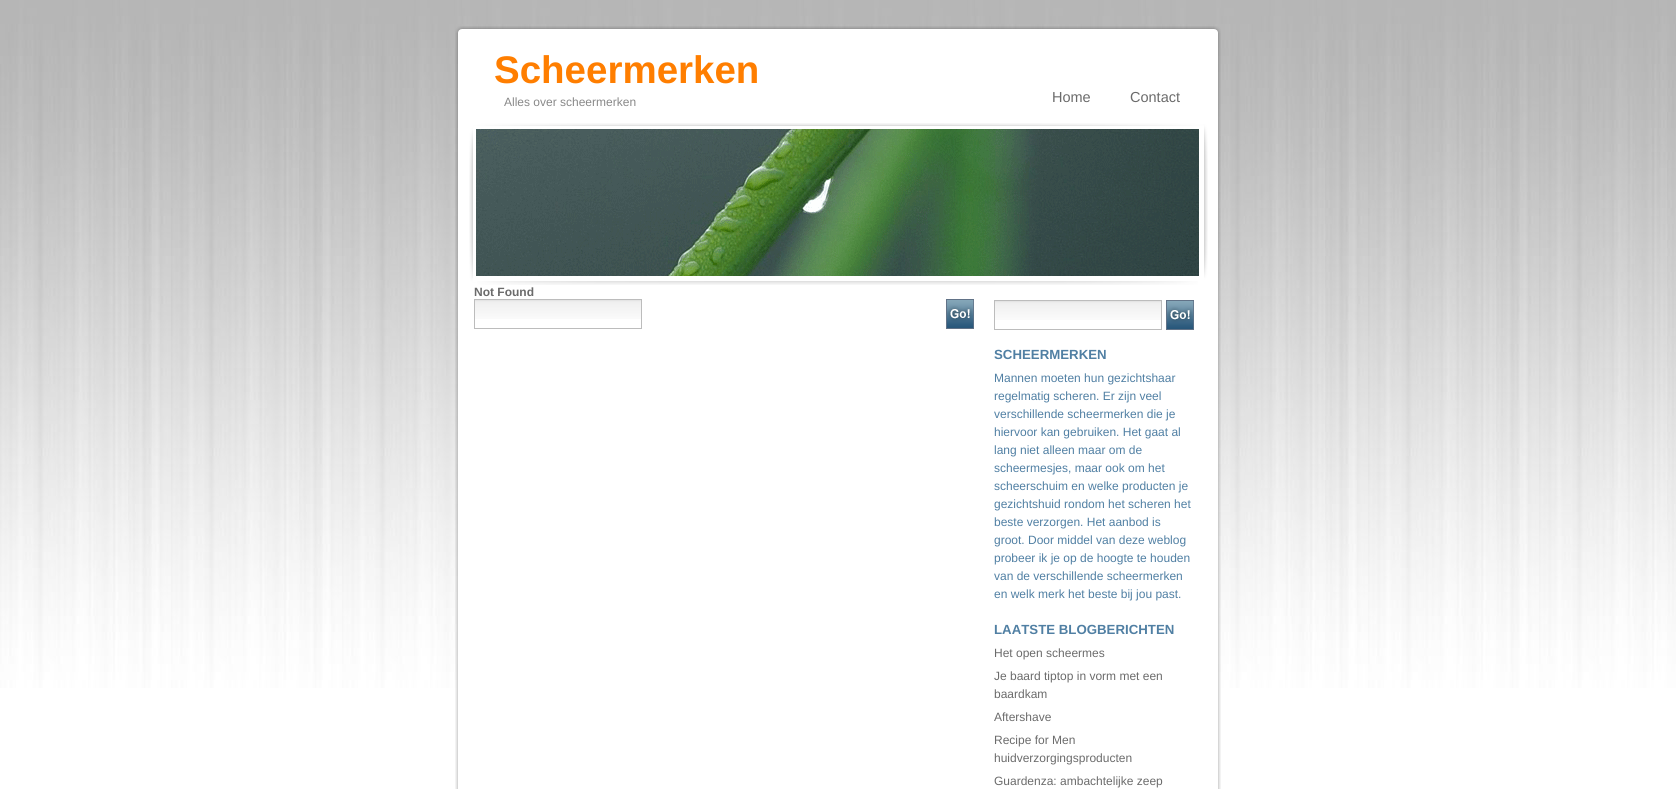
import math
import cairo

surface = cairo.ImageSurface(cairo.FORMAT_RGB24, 1676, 789)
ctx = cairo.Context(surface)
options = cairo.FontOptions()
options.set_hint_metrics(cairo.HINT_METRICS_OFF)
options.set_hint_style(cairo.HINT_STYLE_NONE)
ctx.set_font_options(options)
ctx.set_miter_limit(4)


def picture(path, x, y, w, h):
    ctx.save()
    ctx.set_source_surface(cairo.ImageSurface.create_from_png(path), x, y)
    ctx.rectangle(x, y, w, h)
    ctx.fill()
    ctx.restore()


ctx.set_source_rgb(1, 1, 1)
ctx.paint()
picture("img1.png", 0, 0, 1676, 688)
picture("img2.png", 455, 26, 766, 7)
picture("img3.png", 455, 33, 766, 252)
ctx.select_font_face("Liberation Sans", cairo.FONT_SLANT_NORMAL, cairo.FONT_WEIGHT_BOLD)
ctx.set_font_size(38.5)
ctx.set_source_rgb(1, 0.494, 0)
ctx.move_to(494, 83)
ctx.show_text("Scheermerken")
ctx.select_font_face("Liberation Sans")
ctx.set_font_size(12)
ctx.set_source_rgb(0.533, 0.533, 0.533)
ctx.move_to(504, 106)
ctx.show_text("Alles over scheermerken")
ctx.set_font_size(14.5)
ctx.set_source_rgb(0.42, 0.42, 0.42)
ctx.move_to(1052, 102)
ctx.show_text("Home")
ctx.move_to(1130, 102)
ctx.show_text("Contact")
picture("img4.png", 469, 123, 739, 162)
picture("img5.png", 476, 129, 723, 147)
picture("img6.png", 455, 285, 766, 504)
ctx.select_font_face("Liberation Sans", cairo.FONT_SLANT_NORMAL, cairo.FONT_WEIGHT_BOLD)
ctx.set_font_size(12)
ctx.move_to(474, 296)
ctx.show_text("Not Found")
picture("img7.png", 475, 300, 166, 19)
ctx.rectangle(474.5, 299.5, 167, 29)
ctx.set_source_rgb(0.737, 0.737, 0.737)
ctx.set_line_width(1)
ctx.stroke()
picture("img8.png", 946, 299, 28, 30)
picture("img7.png", 995, 301, 166, 19)
ctx.rectangle(994.5, 300.5, 167, 29)
ctx.stroke()
picture("img8.png", 1166, 300, 28, 30)
ctx.set_font_size(13.25)
ctx.set_source_rgb(0.314, 0.498, 0.639)
ctx.move_to(994, 359)
ctx.show_text("SCHEERMERKEN")
ctx.select_font_face("Liberation Sans")
ctx.set_font_size(12)
ctx.move_to(994, 382)
ctx.show_text("Mannen moeten hun gezichtshaar")
ctx.move_to(994, 400)
ctx.show_text("regelmatig scheren. Er zijn veel")
ctx.move_to(994, 418)
ctx.show_text("verschillende scheermerken die je")
ctx.move_to(994, 436)
ctx.show_text("hiervoor kan gebruiken. Het gaat al")
ctx.move_to(994, 454)
ctx.show_text("lang niet alleen maar om de")
ctx.move_to(994, 472)
ctx.show_text("scheermesjes, maar ook om het")
ctx.move_to(994, 490)
ctx.show_text("scheerschuim en welke producten je")
ctx.move_to(994, 508)
ctx.show_text("gezichtshuid rondom het scheren het")
ctx.move_to(994, 526)
ctx.show_text("beste verzorgen. Het aanbod is")
ctx.move_to(994, 544)
ctx.show_text("groot. Door middel van deze weblog")
ctx.move_to(994, 562)
ctx.show_text("probeer ik je op de hoogte te houden")
ctx.move_to(994, 580)
ctx.show_text("van de verschillende scheermerken")
ctx.move_to(994, 598)
ctx.show_text("en welk merk het beste bij jou past.")
ctx.select_font_face("Liberation Sans", cairo.FONT_SLANT_NORMAL, cairo.FONT_WEIGHT_BOLD)
ctx.set_font_size(13.25)
ctx.move_to(994, 634)
ctx.show_text("LAATSTE BLOGBERICHTEN")
ctx.select_font_face("Liberation Sans")
ctx.set_font_size(12)
ctx.set_source_rgb(0.42, 0.42, 0.42)
ctx.move_to(994, 657)
ctx.show_text("Het open scheermes")
ctx.move_to(994, 680)
ctx.show_text("Je baard tiptop in vorm met een")
ctx.move_to(994, 698)
ctx.show_text("baardkam")
ctx.move_to(994, 721)
ctx.show_text("Aftershave")
ctx.move_to(994, 744)
ctx.show_text("Recipe for Men")
ctx.move_to(994, 762)
ctx.show_text("huidverzorgingsproducten")
ctx.move_to(994, 785)
ctx.show_text("Guardenza: ambachtelijke zeep")
surface.write_to_png("page.png")
